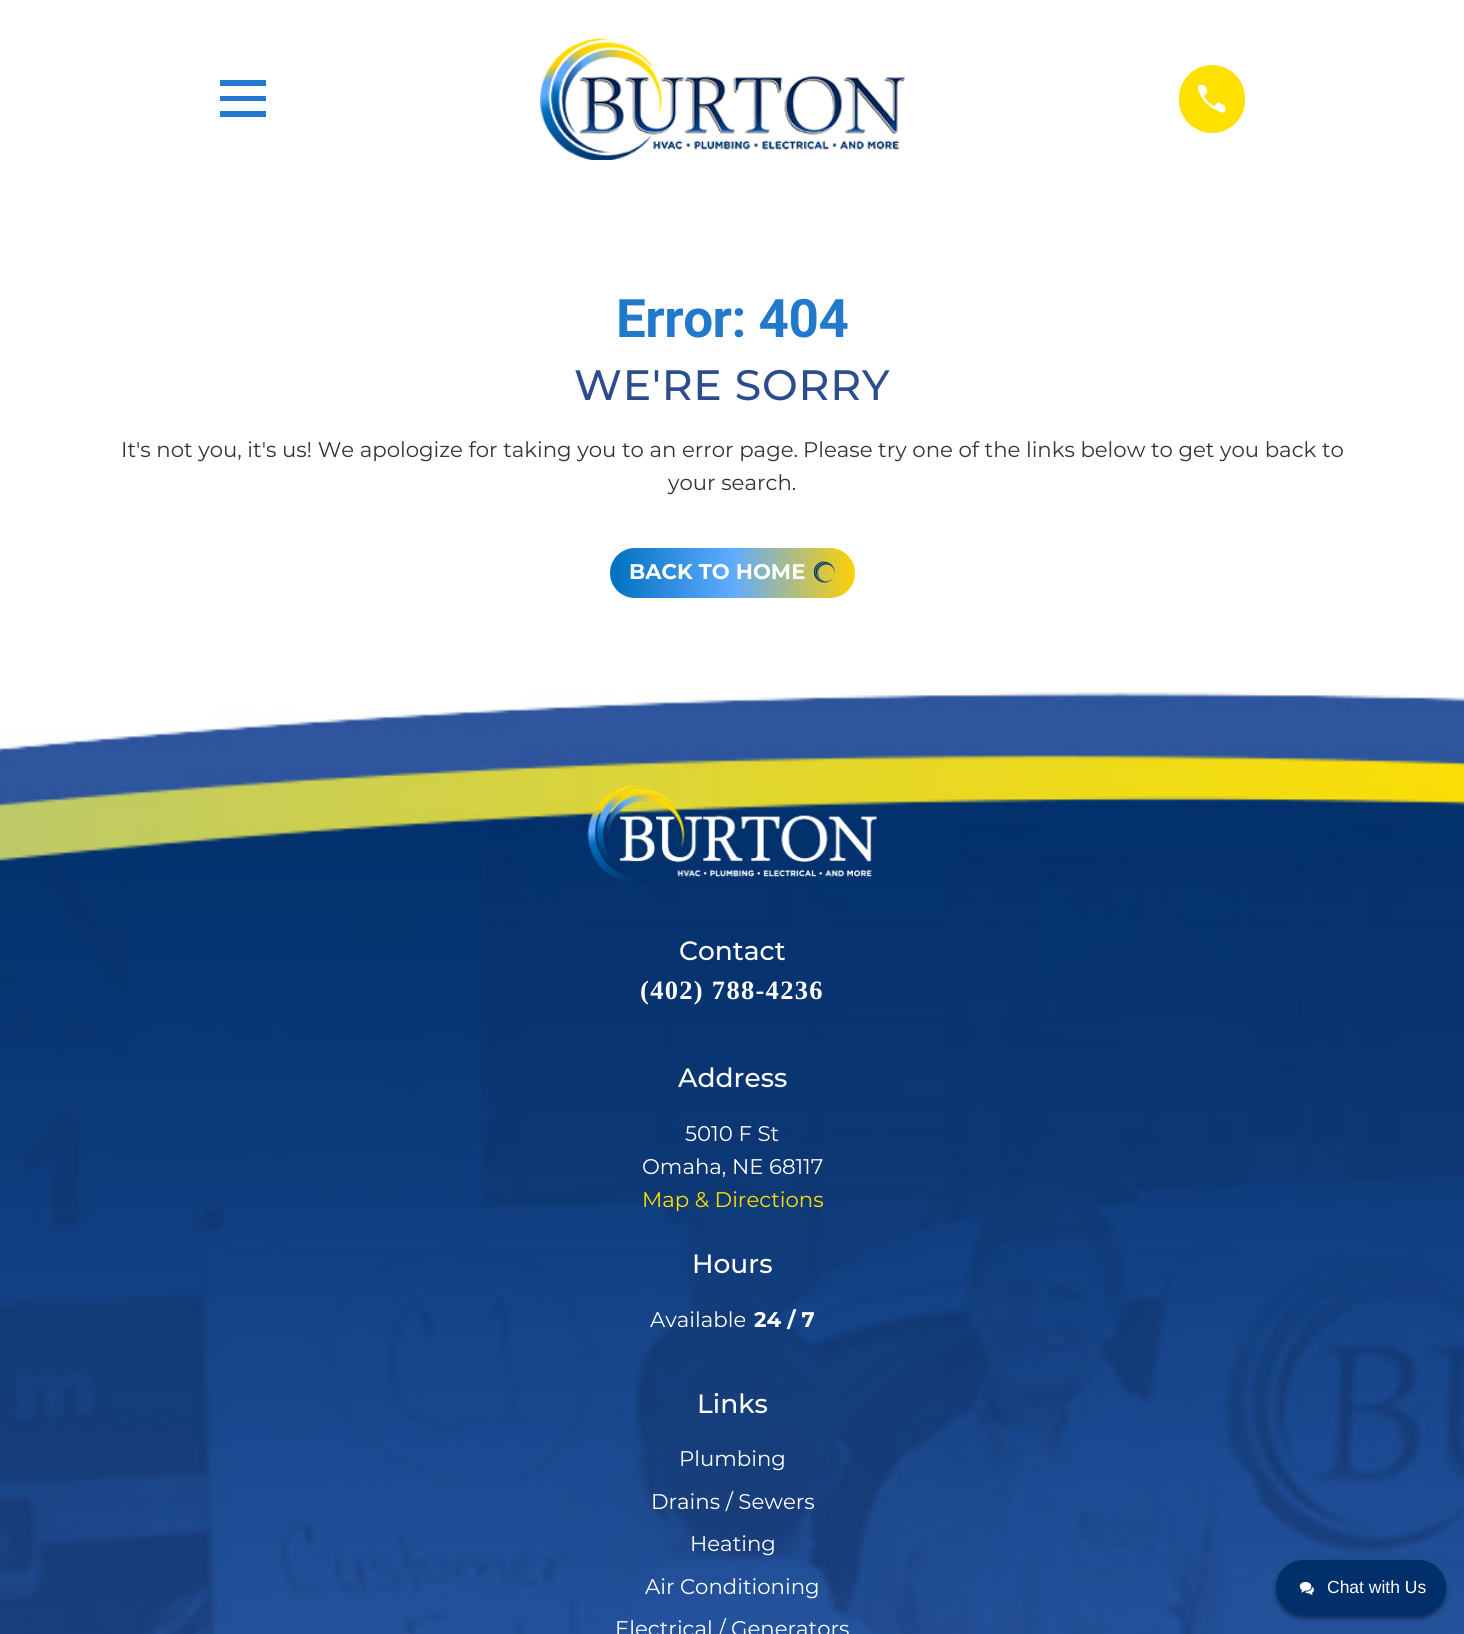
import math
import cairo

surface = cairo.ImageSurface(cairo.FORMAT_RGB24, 1464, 1634)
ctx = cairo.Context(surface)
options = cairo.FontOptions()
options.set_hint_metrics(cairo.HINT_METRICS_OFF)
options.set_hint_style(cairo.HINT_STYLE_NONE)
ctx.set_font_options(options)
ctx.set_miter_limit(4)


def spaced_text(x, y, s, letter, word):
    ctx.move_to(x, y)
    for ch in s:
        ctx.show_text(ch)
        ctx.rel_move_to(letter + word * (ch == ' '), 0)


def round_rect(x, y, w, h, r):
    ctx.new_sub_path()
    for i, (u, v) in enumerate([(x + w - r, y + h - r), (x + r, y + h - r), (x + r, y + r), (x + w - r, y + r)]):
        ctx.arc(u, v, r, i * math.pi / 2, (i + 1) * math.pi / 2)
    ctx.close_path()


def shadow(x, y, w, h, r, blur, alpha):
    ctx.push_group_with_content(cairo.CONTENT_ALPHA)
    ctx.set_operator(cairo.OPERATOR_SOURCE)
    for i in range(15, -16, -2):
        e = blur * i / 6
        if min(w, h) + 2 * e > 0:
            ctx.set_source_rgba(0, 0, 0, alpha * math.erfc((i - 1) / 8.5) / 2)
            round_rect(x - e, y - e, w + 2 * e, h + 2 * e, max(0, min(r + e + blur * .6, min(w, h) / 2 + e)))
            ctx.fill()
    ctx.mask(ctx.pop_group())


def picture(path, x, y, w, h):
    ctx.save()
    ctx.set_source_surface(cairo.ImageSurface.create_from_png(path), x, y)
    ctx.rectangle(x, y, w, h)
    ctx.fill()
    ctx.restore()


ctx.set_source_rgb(1, 1, 1)
ctx.paint()
ctx.save()
ctx.rectangle(220, 75, 46, 48)
ctx.clip()
ctx.set_source_rgb(0.129, 0.471, 0.804)
ctx.new_path()
ctx.move_to(220, 80)
ctx.line_to(220, 86)
ctx.line_to(267, 86)
ctx.line_to(267, 80)
ctx.close_path()
ctx.move_to(220, 96)
ctx.line_to(220, 101)
ctx.line_to(267, 101)
ctx.line_to(267, 96)
ctx.close_path()
ctx.move_to(220, 111)
ctx.line_to(220, 117)
ctx.line_to(267, 117)
ctx.line_to(267, 111)
ctx.close_path()
ctx.fill()
ctx.restore()
picture("img1.png", 540, 38, 365, 122)
ctx.set_source_rgb(0.996, 0.882, 0)
round_rect(1179, 65, 66, 68, 33)
ctx.fill()
picture("img2.png", 1198, 85, 28, 28)
ctx.select_font_face("Roboto", cairo.FONT_SLANT_NORMAL, cairo.FONT_WEIGHT_BOLD)
ctx.set_font_size(53)
ctx.set_source_rgb(0.129, 0.471, 0.804)
spaced_text(616, 337, "Error: 404", -0.5, 0)
ctx.select_font_face("Montserrat Medium")
ctx.set_font_size(42.5)
ctx.set_source_rgb(0.169, 0.302, 0.557)
spaced_text(574, 400, "WE'RE SORRY", 0.8, 0)
ctx.select_font_face("Montserrat")
ctx.set_font_size(21.25)
ctx.set_source_rgb(0.204, 0.204, 0.204)
ctx.move_to(121, 457)
ctx.show_text("It's not you, it's us! We apologize for taking you to an error page.")
ctx.move_to(803, 457)
ctx.show_text("Please try one of the links below to get you back to")
ctx.move_to(668, 490)
ctx.show_text("your search.")
gradient = cairo.LinearGradient(610, 573, 1100, 573)
gradient.add_color_stop_rgba(0, 0, 0.439, 0.749, 1)
gradient.add_color_stop_rgba(0.25, 0.373, 0.671, 1, 1)
gradient.add_color_stop_rgba(0.5, 0.996, 0.816, 0.016, 1)
gradient.add_color_stop_rgba(0.75, 0.373, 0.671, 1, 1)
gradient.add_color_stop_rgba(1, 0, 0.439, 0.749, 1)
ctx.set_source(gradient)
round_rect(610, 548, 245, 50, 25)
ctx.fill()
ctx.select_font_face("Montserrat", cairo.FONT_SLANT_NORMAL, cairo.FONT_WEIGHT_BOLD)
ctx.set_source_rgb(1, 1, 1)
ctx.move_to(629, 579)
ctx.show_text("BACK TO HOME")
picture("img3.png", 814, 561, 21, 22)
picture("img4.png", 0, 691, 1464, 943)
picture("img5.png", 587, 786, 290, 97)
ctx.select_font_face("Montserrat Medium")
ctx.set_font_size(26.5)
ctx.move_to(679, 960)
ctx.show_text("Contact")
ctx.select_font_face("Liberation Serif", cairo.FONT_SLANT_NORMAL, cairo.FONT_WEIGHT_BOLD)
spaced_text(640, 999, "(402) 788-4236", 1.3, 0)
ctx.select_font_face("Montserrat Medium")
ctx.move_to(678, 1087)
ctx.show_text("Address")
ctx.select_font_face("Montserrat")
ctx.set_font_size(21.25)
ctx.move_to(685, 1141)
ctx.show_text("5010 F St")
ctx.move_to(642, 1174)
ctx.show_text("Omaha, NE 68117")
ctx.set_source_rgb(0.996, 0.882, 0)
ctx.move_to(642, 1207)
ctx.show_text("Map & Directions")
ctx.select_font_face("Montserrat Medium")
ctx.set_font_size(26.5)
ctx.set_source_rgb(1, 1, 1)
ctx.move_to(692, 1273)
ctx.show_text("Hours")
ctx.select_font_face("Montserrat")
ctx.set_font_size(21.25)
ctx.move_to(650, 1327)
ctx.show_text("Available")
ctx.select_font_face("Montserrat", cairo.FONT_SLANT_NORMAL, cairo.FONT_WEIGHT_BOLD)
ctx.move_to(754, 1327)
ctx.show_text("24 / 7")
ctx.select_font_face("Montserrat Medium")
ctx.set_font_size(26.5)
ctx.move_to(697, 1413)
ctx.show_text("Links")
ctx.select_font_face("Montserrat")
ctx.set_font_size(21.25)
ctx.move_to(679, 1466)
ctx.show_text("Plumbing")
ctx.move_to(651, 1509)
ctx.show_text("Drains / Sewers")
ctx.move_to(690, 1551)
ctx.show_text("Heating")
ctx.move_to(645, 1594)
ctx.show_text("Air Conditioning")
ctx.move_to(615, 1636)
ctx.show_text("Electrical / Generators")
ctx.set_source_rgb(0, 0, 0)
shadow(1276, 1563, 170, 55, 27.5, 2.5, 0.5)
ctx.set_source_rgb(0, 0.184, 0.416)
round_rect(1276, 1560, 170, 55, 27.5)
ctx.fill()
picture("img6.png", 1299, 1581, 15, 14)
ctx.select_font_face("Liberation Sans")
ctx.set_font_size(17.5)
ctx.set_source_rgb(1, 1, 1)
ctx.move_to(1327, 1593)
ctx.show_text("Chat with Us")
surface.write_to_png("page.png")
